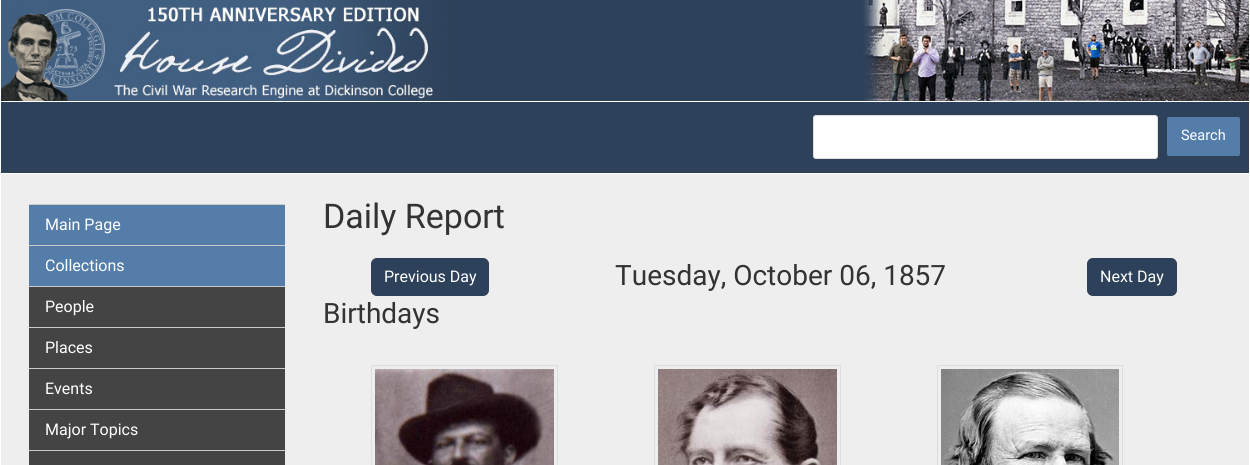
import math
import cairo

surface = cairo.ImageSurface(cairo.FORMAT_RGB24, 1250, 465)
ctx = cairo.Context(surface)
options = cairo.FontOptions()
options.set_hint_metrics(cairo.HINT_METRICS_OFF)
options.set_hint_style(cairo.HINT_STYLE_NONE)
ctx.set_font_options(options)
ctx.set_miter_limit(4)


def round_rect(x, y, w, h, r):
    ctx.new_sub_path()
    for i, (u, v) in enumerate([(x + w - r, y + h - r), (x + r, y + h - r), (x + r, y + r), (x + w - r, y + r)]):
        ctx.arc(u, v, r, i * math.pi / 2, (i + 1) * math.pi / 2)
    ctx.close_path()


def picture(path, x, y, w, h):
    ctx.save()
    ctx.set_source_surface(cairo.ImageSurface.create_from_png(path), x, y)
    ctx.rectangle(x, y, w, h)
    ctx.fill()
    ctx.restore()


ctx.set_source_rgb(1, 1, 1)
ctx.paint()
picture("img1.png", 1, 0, 1248, 101)
ctx.set_source_rgb(0.176, 0.255, 0.353)
ctx.rectangle(1, 102, 1248, 71)
ctx.fill()
ctx.set_source_rgb(1, 1, 1)
round_rect(813.5, 115.5, 344, 43, 2.5)
ctx.fill_preserve()
ctx.set_source_rgb(0.867, 0.867, 0.867)
ctx.set_line_width(1)
ctx.stroke()
ctx.set_source_rgb(0.329, 0.494, 0.663)
round_rect(1166.5, 116.5, 74, 40, 2.5)
ctx.fill_preserve()
ctx.set_source_rgb(0.176, 0.255, 0.353)
ctx.stroke()
ctx.select_font_face("Roboto")
ctx.set_font_size(14.5)
ctx.set_source_rgb(1, 1, 1)
ctx.move_to(1181, 140)
ctx.show_text("Search")
ctx.set_source_rgb(0.933, 0.933, 0.933)
ctx.rectangle(1, 174, 1248, 291)
ctx.fill()
ctx.set_source_rgb(0.792, 0.792, 0.792)
ctx.rectangle(29, 204, 256, 1)
ctx.fill()
ctx.rectangle(29, 245, 256, 1)
ctx.fill()
ctx.set_source_rgb(0.329, 0.494, 0.663)
ctx.rectangle(29, 205, 256, 40)
ctx.fill()
ctx.set_font_size(16)
ctx.set_source_rgb(1, 1, 1)
ctx.move_to(45, 230)
ctx.show_text("Main Page")
ctx.set_source_rgb(0.792, 0.792, 0.792)
ctx.rectangle(29, 286, 256, 1)
ctx.fill()
ctx.set_source_rgb(0.329, 0.494, 0.663)
ctx.rectangle(29, 246, 256, 40)
ctx.fill()
ctx.set_source_rgb(1, 1, 1)
ctx.move_to(45, 271)
ctx.show_text("Collections")
ctx.set_source_rgb(0.792, 0.792, 0.792)
ctx.rectangle(29, 327, 256, 1)
ctx.fill()
ctx.set_source_rgb(0.267, 0.267, 0.267)
ctx.rectangle(29, 287, 256, 40)
ctx.fill()
ctx.set_source_rgb(1, 1, 1)
ctx.move_to(45, 312)
ctx.show_text("People")
ctx.set_source_rgb(0.792, 0.792, 0.792)
ctx.rectangle(29, 368, 256, 1)
ctx.fill()
ctx.set_source_rgb(0.267, 0.267, 0.267)
ctx.rectangle(29, 328, 256, 40)
ctx.fill()
ctx.set_source_rgb(1, 1, 1)
ctx.move_to(45, 353)
ctx.show_text("Places")
ctx.set_source_rgb(0.792, 0.792, 0.792)
ctx.rectangle(29, 409, 256, 1)
ctx.fill()
ctx.set_source_rgb(0.267, 0.267, 0.267)
ctx.rectangle(29, 369, 256, 40)
ctx.fill()
ctx.set_source_rgb(1, 1, 1)
ctx.move_to(45, 394)
ctx.show_text("Events")
ctx.set_source_rgb(0.792, 0.792, 0.792)
ctx.rectangle(29, 450, 256, 1)
ctx.fill()
ctx.set_source_rgb(0.267, 0.267, 0.267)
ctx.rectangle(29, 410, 256, 40)
ctx.fill()
ctx.set_source_rgb(1, 1, 1)
ctx.move_to(45, 435)
ctx.show_text("Major Topics")
ctx.set_source_rgb(0.267, 0.267, 0.267)
ctx.rectangle(29, 451, 256, 14)
ctx.fill()
ctx.set_font_size(34)
ctx.set_source_rgb(0.2, 0.2, 0.2)
ctx.move_to(323, 228)
ctx.show_text("Daily Report")
ctx.set_source_rgb(0.176, 0.255, 0.353)
round_rect(371.5, 258.5, 117, 37, 5.5)
ctx.fill_preserve()
ctx.stroke()
ctx.set_font_size(16)
ctx.set_source_rgb(1, 1, 1)
ctx.move_to(384, 282)
ctx.show_text("Previous Day")
ctx.set_font_size(28)
ctx.set_source_rgb(0.2, 0.2, 0.2)
ctx.move_to(615, 285)
ctx.show_text("Tuesday, October 06, 1857")
ctx.set_source_rgb(0.176, 0.255, 0.353)
round_rect(1087.5, 258.5, 89, 37, 5.5)
ctx.fill_preserve()
ctx.stroke()
ctx.set_font_size(16)
ctx.set_source_rgb(1, 1, 1)
ctx.move_to(1100, 282)
ctx.show_text("Next Day")
ctx.set_font_size(28)
ctx.set_source_rgb(0.2, 0.2, 0.2)
ctx.move_to(323, 323)
ctx.show_text("Birthdays")
ctx.rectangle(371.5, 365.5, 186, 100)
ctx.set_source_rgb(0.867, 0.867, 0.867)
ctx.stroke()
picture("img2.png", 375, 369, 179, 96)
ctx.rectangle(654.5, 365.5, 186, 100)
ctx.stroke()
picture("img3.png", 658, 369, 179, 96)
ctx.rectangle(937.5, 365.5, 185, 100)
ctx.stroke()
picture("img4.png", 941, 369, 178, 96)
surface.write_to_png("page.png")
